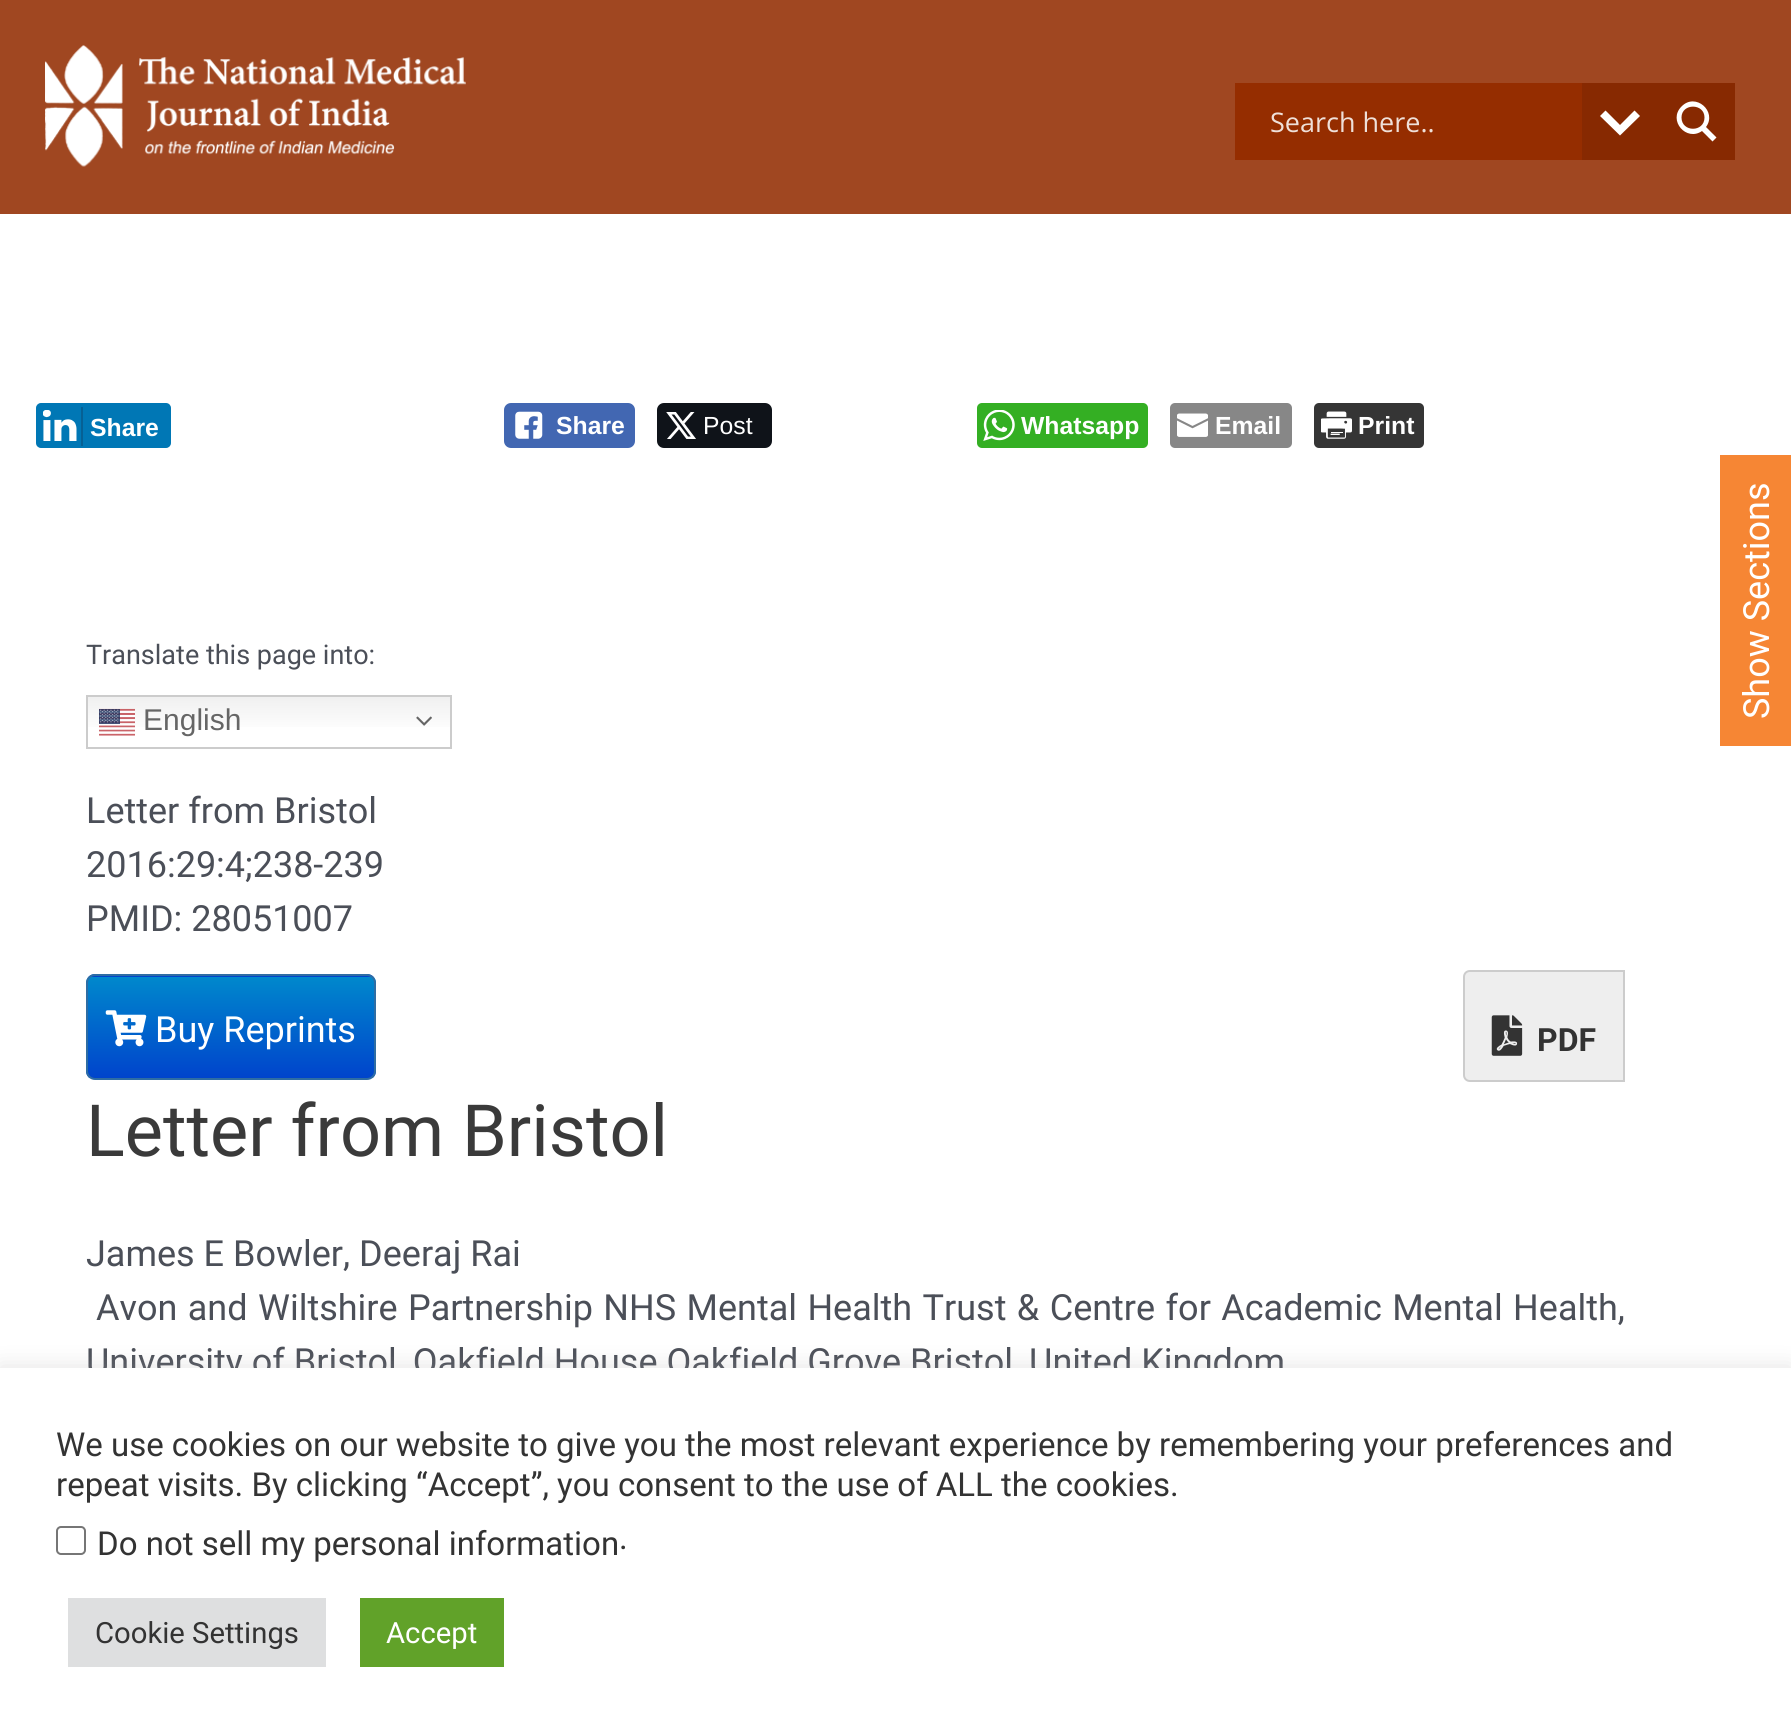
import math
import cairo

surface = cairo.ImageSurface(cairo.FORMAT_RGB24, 1791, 1733)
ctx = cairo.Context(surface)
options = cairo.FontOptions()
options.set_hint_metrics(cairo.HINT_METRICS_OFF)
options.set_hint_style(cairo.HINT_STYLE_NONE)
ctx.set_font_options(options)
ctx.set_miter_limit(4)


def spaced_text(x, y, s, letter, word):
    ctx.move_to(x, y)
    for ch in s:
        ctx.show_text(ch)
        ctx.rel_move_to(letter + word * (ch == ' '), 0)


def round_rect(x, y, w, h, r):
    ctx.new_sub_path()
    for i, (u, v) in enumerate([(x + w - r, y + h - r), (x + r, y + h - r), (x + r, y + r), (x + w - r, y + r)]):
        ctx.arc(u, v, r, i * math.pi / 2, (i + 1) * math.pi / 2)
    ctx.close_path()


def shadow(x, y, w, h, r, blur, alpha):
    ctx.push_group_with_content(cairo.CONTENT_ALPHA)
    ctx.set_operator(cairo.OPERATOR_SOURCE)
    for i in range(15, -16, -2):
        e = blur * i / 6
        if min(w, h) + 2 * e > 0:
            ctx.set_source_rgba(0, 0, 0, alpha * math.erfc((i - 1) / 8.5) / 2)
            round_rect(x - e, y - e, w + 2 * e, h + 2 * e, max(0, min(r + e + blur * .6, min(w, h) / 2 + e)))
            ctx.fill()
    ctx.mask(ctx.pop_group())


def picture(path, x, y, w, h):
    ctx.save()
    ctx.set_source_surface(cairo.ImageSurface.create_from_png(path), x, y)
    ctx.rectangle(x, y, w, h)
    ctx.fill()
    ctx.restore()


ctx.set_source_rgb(1, 1, 1)
ctx.paint()
ctx.set_source_rgb(0.627, 0.278, 0.129)
ctx.rectangle(0, 0, 1791, 214)
ctx.fill()
picture("img1.png", 45, 45, 421, 122)
ctx.set_source_rgb(0.584, 0.176, 0)
ctx.rectangle(1235, 83, 347, 77)
ctx.fill()
ctx.set_source_rgb(0.529, 0.161, 0.004)
ctx.rectangle(1582, 83, 153, 77)
ctx.fill()
ctx.set_source_rgb(1, 1, 1)
ctx.new_path()
ctx.move_to(1634.5, 110.5)
ctx.line_to(1640, 116)
ctx.line_to(1620, 135.5)
ctx.line_to(1600, 116)
ctx.line_to(1605.5, 110.5)
ctx.line_to(1620, 125)
ctx.close_path()
ctx.fill()
ctx.select_font_face("Open Sans")
ctx.set_font_size(27)
ctx.set_source_rgb(0.937, 0.878, 0.851)
ctx.move_to(1270, 132)
ctx.show_text("Search here..")
ctx.set_source_rgb(1, 1, 1)
ctx.new_path()
ctx.move_to(1716.5, 137.5)
ctx.line_to(1706, 127)
ctx.curve_to(1717.5, 111.5, 1695.5, 92, 1681.5, 106.5)
ctx.curve_to(1667.5, 120.5, 1686.5, 142, 1702, 131)
ctx.line_to(1712.5, 141.5)
ctx.close_path()
ctx.move_to(1681.5, 117.5)
ctx.curve_to(1681.5, 103, 1704.5, 103, 1704.5, 117.5)
ctx.curve_to(1704.5, 132.5, 1681.5, 132.5, 1681.5, 117.5)
ctx.close_path()
ctx.fill()
ctx.set_source_rgb(0, 0.467, 0.71)
round_rect(37, 404, 133, 43, 4)
ctx.fill_preserve()
ctx.stroke()
ctx.set_source_rgb(0.024, 0.376, 0.58)
ctx.rectangle(81, 407, 2, 39)
ctx.fill()
picture("img2.png", 43, 410, 34, 31)
ctx.select_font_face("Liberation Sans", cairo.FONT_SLANT_NORMAL, cairo.FONT_WEIGHT_BOLD)
ctx.set_font_size(24.75)
ctx.set_source_rgb(1, 1, 1)
ctx.move_to(90, 436)
ctx.show_text("Share")
ctx.set_source_rgb(0.259, 0.404, 0.698)
round_rect(505, 404, 129, 43, 6)
ctx.fill_preserve()
ctx.stroke()
picture("img3.png", 515, 411, 28, 28)
ctx.set_source_rgb(1, 1, 1)
ctx.move_to(556, 434)
ctx.show_text("Share")
ctx.set_source_rgb(0.059, 0.078, 0.098)
round_rect(657, 403, 115, 45, 7)
ctx.fill()
picture("img4.png", 666, 412, 30, 27)
ctx.select_font_face("Liberation Sans")
ctx.set_source_rgb(1, 1, 1)
ctx.move_to(703, 434)
ctx.show_text("Post")
ctx.set_source_rgb(0.204, 0.686, 0.137)
round_rect(977, 403, 171, 45, 5)
ctx.fill()
picture("img5.png", 983, 410, 32, 31)
ctx.select_font_face("Liberation Sans", cairo.FONT_SLANT_NORMAL, cairo.FONT_WEIGHT_BOLD)
ctx.set_source_rgb(1, 1, 1)
ctx.move_to(1021, 434)
ctx.show_text("Whatsapp")
ctx.set_source_rgb(0.529, 0.529, 0.529)
round_rect(1170, 403, 122, 45, 5)
ctx.fill()
picture("img6.png", 1177, 413, 31, 24)
ctx.set_source_rgb(1, 1, 1)
ctx.move_to(1215, 434)
ctx.show_text("Email")
ctx.set_source_rgb(0.208, 0.208, 0.208)
round_rect(1314, 403, 110, 45, 5)
ctx.fill()
picture("img7.png", 1321, 411, 31, 28)
ctx.set_source_rgb(1, 1, 1)
ctx.move_to(1358, 434)
ctx.show_text("Print")
ctx.set_source_rgb(0.961, 0.525, 0.204)
ctx.rectangle(1720, 455, 71, 291)
ctx.fill()
ctx.select_font_face("Roboto")
ctx.set_font_size(36)
ctx.set_source_rgb(1, 1, 1)
ctx.save()
ctx.translate(1769, 719)
ctx.rotate(-90 * math.pi / 180)
ctx.move_to(0, 0)
ctx.show_text("Show Sections")
ctx.restore()
ctx.set_font_size(27)
ctx.set_source_rgb(0.294, 0.31, 0.345)
ctx.move_to(86, 664)
ctx.show_text("Translate this page into:")
gradient = cairo.LinearGradient(269, 695, 269, 749)
gradient.add_color_stop_rgba(0, 0.937, 0.937, 0.937, 1)
gradient.add_color_stop_rgba(0.7, 1, 1, 1, 1)
ctx.set_source(gradient)
ctx.rectangle(88, 697, 362, 30)
ctx.fill()
ctx.rectangle(87, 696, 364, 52)
ctx.set_source_rgb(0.8, 0.8, 0.8)
ctx.stroke()
picture("img8.png", 99, 708, 36, 28)
ctx.select_font_face("Liberation Sans")
ctx.set_font_size(30)
ctx.set_source_rgb(0.4, 0.4, 0.4)
ctx.move_to(143, 730)
ctx.show_text("English")
picture("img9.png", 416, 716, 16, 10)
ctx.select_font_face("Roboto")
ctx.set_font_size(36)
ctx.set_source_rgb(0.294, 0.31, 0.345)
ctx.move_to(86, 823)
ctx.show_text("Letter from Bristol")
ctx.move_to(86, 877)
ctx.show_text("2016:29:4;238-239")
ctx.move_to(86, 931)
ctx.show_text("PMID: 28051007")
ctx.save()
round_rect(86, 974, 290, 106, 9)
ctx.clip()
gradient = cairo.LinearGradient(231, 875, 231, 977)
gradient.add_color_stop_rgba(0, 0, 0.533, 0.8, 1)
gradient.add_color_stop_rgba(1, 0, 0.267, 0.8, 1)
ctx.set_source(gradient)
ctx.rectangle(86, 974, 290, 3)
ctx.fill()
gradient = cairo.LinearGradient(231, 977, 231, 1078)
gradient.add_color_stop_rgba(0, 0, 0.533, 0.8, 1)
gradient.add_color_stop_rgba(1, 0, 0.267, 0.8, 1)
ctx.set_source(gradient)
ctx.rectangle(86, 977, 290, 101)
ctx.fill()
ctx.restore()
round_rect(87, 975, 288, 104, 8)
ctx.set_source_rgb(0.18, 0.427, 0.643)
ctx.stroke()
picture("img10.png", 105, 1010, 42, 37)
ctx.set_source_rgb(1, 1, 1)
ctx.move_to(155, 1042)
ctx.show_text("Buy Reprints")
ctx.set_source_rgb(0.933, 0.933, 0.933)
ctx.new_path()
ctx.move_to(1470, 971)
ctx.line_to(1624, 971)
ctx.line_to(1624, 1081)
ctx.line_to(1470, 1081)
ctx.curve_to(1466.5, 1081, 1464, 1078.5, 1464, 1075)
ctx.line_to(1464, 977)
ctx.curve_to(1464, 973.5, 1466.5, 971, 1470, 971)
ctx.close_path()
ctx.fill_preserve()
ctx.set_source_rgb(0.8, 0.8, 0.8)
ctx.stroke()
picture("img11.png", 1491, 1015, 32, 41)
ctx.select_font_face("Roboto", cairo.FONT_SLANT_NORMAL, cairo.FONT_WEIGHT_BOLD)
ctx.set_font_size(32)
ctx.set_source_rgb(0.2, 0.2, 0.2)
ctx.move_to(1537, 1051)
ctx.show_text("PDF")
ctx.select_font_face("Roboto")
ctx.set_font_size(72)
ctx.set_source_rgb(0.227, 0.227, 0.227)
ctx.move_to(86, 1156)
ctx.show_text("Letter from Bristol")
ctx.set_font_size(36)
ctx.set_source_rgb(0.294, 0.31, 0.345)
ctx.move_to(86, 1266)
ctx.show_text("James E Bowler, Deeraj Rai")
spaced_text(96, 1320, "Avon and Wiltshire Partnership NHS Mental Health Trust & Centre for Academic Mental Health,", 0, 1.5)
ctx.move_to(86, 1374)
ctx.show_text("University of Bristol, Oakfield House Oakfield Grove Bristol, United Kingdom")
ctx.set_source_rgb(0.675, 0.671, 0.671)
shadow(0, 1366, 1791, 367, 0, 11, 0.3)
ctx.set_source_rgb(1, 1, 1)
ctx.rectangle(0, 1368, 1791, 365)
ctx.fill()
ctx.set_font_size(33)
ctx.set_source_rgb(0.2, 0.2, 0.2)
ctx.move_to(56, 1456)
ctx.show_text("We use cookies on our website to give you the most relevant experience by remembering your preferences and")
ctx.move_to(56, 1496)
ctx.show_text("repeat visits. By clicking “Accept”, you consent to the use of ALL the cookies.")
round_rect(57, 1527, 28, 27, 4)
ctx.set_source_rgb(0.463, 0.463, 0.463)
ctx.stroke()
ctx.set_source_rgb(0.2, 0.2, 0.2)
ctx.move_to(97, 1555)
ctx.show_text("Do not sell my personal information")
ctx.move_to(619, 1549)
ctx.show_text(".")
ctx.set_source_rgb(0.871, 0.875, 0.878)
ctx.rectangle(68, 1598, 258, 69)
ctx.fill()
ctx.set_font_size(29.25)
ctx.set_source_rgb(0.2, 0.2, 0.2)
ctx.move_to(95, 1643)
ctx.show_text("Cookie Settings")
ctx.set_source_rgb(0.38, 0.635, 0.161)
ctx.rectangle(360, 1598, 144, 69)
ctx.fill()
ctx.set_source_rgb(1, 1, 1)
ctx.move_to(386, 1643)
ctx.show_text("Accept")
surface.write_to_png("page.png")
